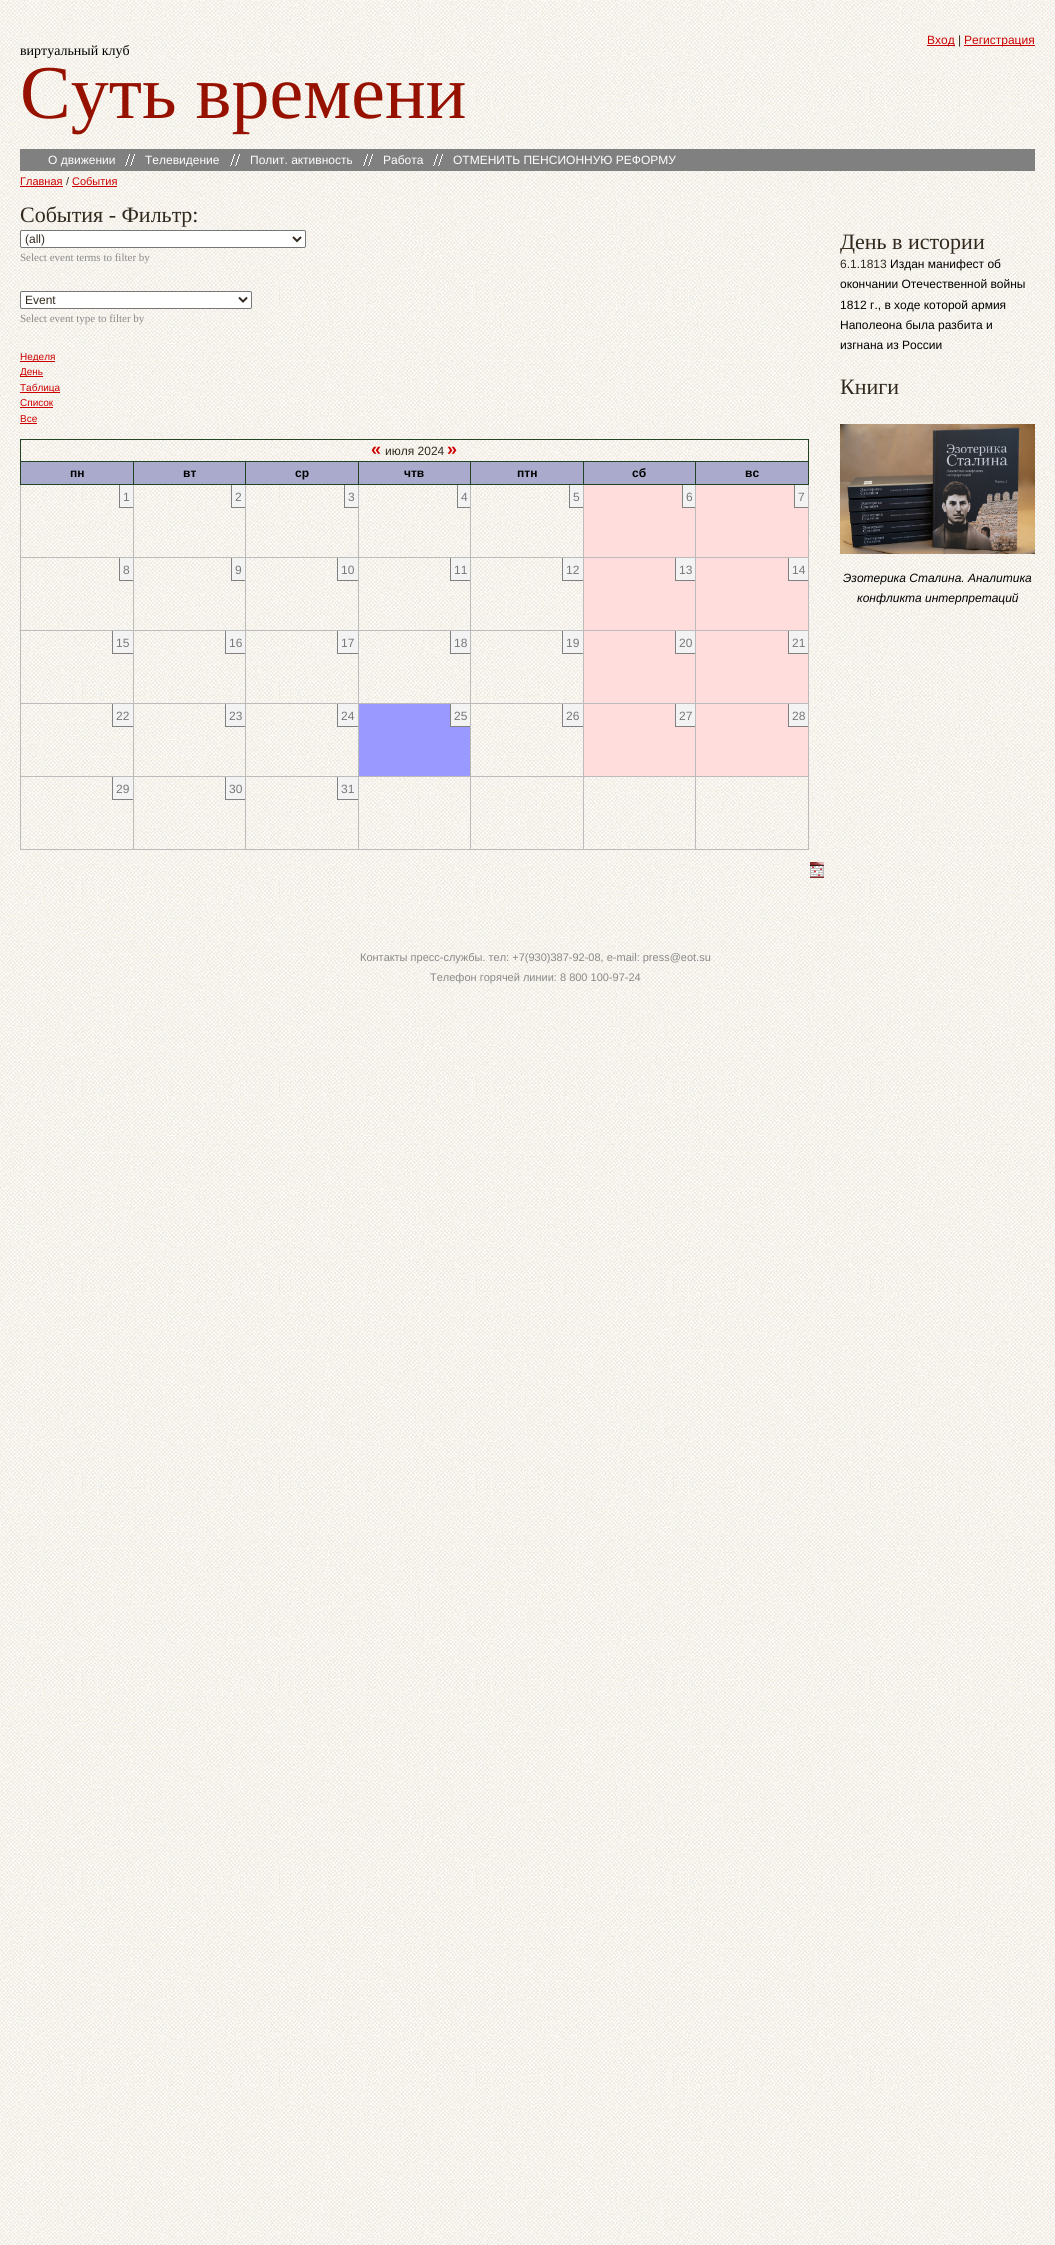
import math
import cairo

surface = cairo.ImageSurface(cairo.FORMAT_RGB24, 1055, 2245)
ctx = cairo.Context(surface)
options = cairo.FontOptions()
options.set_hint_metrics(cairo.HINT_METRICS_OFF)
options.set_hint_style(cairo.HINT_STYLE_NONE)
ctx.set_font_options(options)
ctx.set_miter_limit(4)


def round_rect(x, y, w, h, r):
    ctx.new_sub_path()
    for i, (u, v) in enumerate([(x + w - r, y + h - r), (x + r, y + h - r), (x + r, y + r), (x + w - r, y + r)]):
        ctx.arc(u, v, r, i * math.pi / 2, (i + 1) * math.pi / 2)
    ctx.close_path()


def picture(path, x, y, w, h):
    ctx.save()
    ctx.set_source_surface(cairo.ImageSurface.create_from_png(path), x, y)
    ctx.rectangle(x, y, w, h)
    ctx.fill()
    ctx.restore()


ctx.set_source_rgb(1, 1, 1)
ctx.paint()
picture("img1.png", 0, 0, 1055, 2245)
ctx.set_source_rgb(0.8, 0, 0)
ctx.rectangle(927, 45, 28, 1)
ctx.fill()
ctx.select_font_face("Liberation Sans")
ctx.set_font_size(12)
ctx.move_to(927, 44)
ctx.show_text("Вход")
ctx.set_source_rgb(0.196, 0.161, 0.118)
ctx.move_to(958, 44)
ctx.show_text("|")
ctx.set_source_rgb(0.8, 0, 0)
ctx.rectangle(964, 45, 71, 1)
ctx.fill()
ctx.move_to(964, 44)
ctx.show_text("Регистрация")
ctx.set_source_rgb(0.502, 0.502, 0.502)
ctx.rectangle(20, 149, 1015, 22)
ctx.fill()
picture("img2.png", 125, 154, 10, 12)
ctx.set_source_rgb(1, 1, 1)
ctx.move_to(48, 164)
ctx.show_text("О движении")
picture("img2.png", 230, 154, 10, 12)
ctx.move_to(145, 164)
ctx.show_text("Телевидение")
picture("img2.png", 363, 154, 10, 12)
ctx.move_to(250, 164)
ctx.show_text("Полит. активность")
picture("img2.png", 433, 154, 10, 12)
ctx.move_to(383, 164)
ctx.show_text("Работа")
ctx.move_to(453, 164)
ctx.show_text("ОТМЕНИТЬ ПЕНСИОННУЮ РЕФОРМУ")
ctx.select_font_face("Liberation Serif")
ctx.set_font_size(14)
ctx.set_source_rgb(0, 0, 0)
ctx.move_to(20, 55)
ctx.show_text("виртуальный клуб")
ctx.set_font_size(76)
ctx.set_source_rgb(0.588, 0.067, 0)
ctx.move_to(20, 118)
ctx.show_text("Суть времени")
ctx.select_font_face("Liberation Sans")
ctx.set_font_size(11)
ctx.set_source_rgb(0.8, 0, 0)
ctx.move_to(20, 185)
ctx.show_text("Главная")
ctx.rectangle(20, 186, 43, 1)
ctx.fill()
ctx.set_source_rgb(0.196, 0.161, 0.118)
ctx.move_to(66, 185)
ctx.show_text("/")
ctx.set_source_rgb(0.8, 0, 0)
ctx.move_to(72, 185)
ctx.show_text("События")
ctx.rectangle(72, 186, 45, 1)
ctx.fill()
ctx.select_font_face("Liberation Serif")
ctx.set_font_size(22)
ctx.set_source_rgb(0.196, 0.161, 0.118)
ctx.move_to(20, 222)
ctx.show_text("События - Фильтр:")
ctx.set_source_rgb(1, 1, 1)
round_rect(20.5, 230.5, 285, 17, 1.5)
ctx.fill_preserve()
ctx.set_source_rgb(0.463, 0.463, 0.463)
ctx.set_line_width(1)
ctx.stroke()
ctx.new_path()
ctx.move_to(293, 237)
ctx.line_to(297, 241)
ctx.line_to(301, 237)
ctx.set_source_rgb(0.196, 0.161, 0.118)
ctx.set_line_width(2)
ctx.stroke()
ctx.select_font_face("Liberation Sans")
ctx.set_font_size(12)
ctx.move_to(25, 243)
ctx.show_text("(all)")
ctx.select_font_face("Liberation Serif")
ctx.set_font_size(11)
ctx.set_source_rgb(0.537, 0.537, 0.537)
ctx.move_to(20, 261)
ctx.show_text("Select event terms to filter by")
ctx.set_source_rgb(1, 1, 1)
round_rect(20.5, 291.5, 231, 17, 1.5)
ctx.fill_preserve()
ctx.set_source_rgb(0.463, 0.463, 0.463)
ctx.set_line_width(1)
ctx.stroke()
ctx.new_path()
ctx.move_to(239, 297.5)
ctx.line_to(243, 301.5)
ctx.line_to(247, 297.5)
ctx.set_source_rgb(0.196, 0.161, 0.118)
ctx.set_line_width(2)
ctx.stroke()
ctx.select_font_face("Liberation Sans")
ctx.set_font_size(12)
ctx.move_to(25, 304)
ctx.show_text("Event")
ctx.select_font_face("Liberation Serif")
ctx.set_font_size(11)
ctx.set_source_rgb(0.537, 0.537, 0.537)
ctx.move_to(20, 322)
ctx.show_text("Select event type to filter by")
ctx.set_source_rgb(0.8, 0, 0)
ctx.rectangle(20, 361, 35, 1)
ctx.fill()
ctx.select_font_face("Liberation Sans")
ctx.set_font_size(10)
ctx.move_to(20, 360)
ctx.show_text("Неделя")
ctx.rectangle(20, 376, 23, 1)
ctx.fill()
ctx.move_to(20, 375)
ctx.show_text("День")
ctx.rectangle(20, 392, 40, 1)
ctx.fill()
ctx.move_to(20, 391)
ctx.show_text("Таблица")
ctx.move_to(20, 406)
ctx.show_text("Список")
ctx.rectangle(20, 407, 33, 1)
ctx.fill()
ctx.move_to(20, 422)
ctx.show_text("Все")
ctx.rectangle(20, 423, 17, 1)
ctx.fill()
ctx.set_source_rgb(0.133, 0.267, 0.133)
ctx.rectangle(20, 439, 789, 1)
ctx.fill()
ctx.rectangle(808, 439, 1, 22)
ctx.fill()
ctx.rectangle(20, 439, 1, 45)
ctx.fill()
ctx.select_font_face("Liberation Sans", cairo.FONT_SLANT_NORMAL, cairo.FONT_WEIGHT_BOLD)
ctx.set_font_size(18)
ctx.set_source_rgb(0.8, 0, 0)
ctx.move_to(371, 455)
ctx.show_text("«")
ctx.select_font_face("Liberation Sans")
ctx.set_font_size(12)
ctx.set_source_rgb(0.196, 0.161, 0.118)
ctx.move_to(385, 455)
ctx.show_text("июля 2024")
ctx.select_font_face("Liberation Sans", cairo.FONT_SLANT_NORMAL, cairo.FONT_WEIGHT_BOLD)
ctx.set_font_size(18)
ctx.set_source_rgb(0.8, 0, 0)
ctx.move_to(447, 455)
ctx.show_text("»")
ctx.set_source_rgb(0.667, 0.667, 0.8)
ctx.rectangle(21, 462, 112, 22)
ctx.fill()
ctx.set_source_rgb(0.133, 0.267, 0.133)
ctx.rectangle(695, 461, 114, 1)
ctx.fill()
ctx.set_source_rgb(0.733, 0.733, 0.733)
ctx.rectangle(695, 557, 114, 1)
ctx.fill()
ctx.rectangle(695, 630, 114, 1)
ctx.fill()
ctx.rectangle(695, 703, 114, 1)
ctx.fill()
ctx.rectangle(695, 776, 114, 1)
ctx.fill()
ctx.rectangle(808, 776, 1, 74)
ctx.fill()
ctx.rectangle(808, 703, 1, 74)
ctx.fill()
ctx.rectangle(808, 630, 1, 74)
ctx.fill()
ctx.rectangle(808, 484, 1, 147)
ctx.fill()
ctx.set_source_rgb(0.133, 0.267, 0.133)
ctx.rectangle(808, 461, 1, 24)
ctx.fill()
ctx.set_source_rgb(0.733, 0.733, 0.733)
ctx.rectangle(695, 849, 114, 1)
ctx.fill()
ctx.rectangle(695, 776, 1, 74)
ctx.fill()
ctx.rectangle(583, 776, 113, 1)
ctx.fill()
ctx.rectangle(695, 703, 1, 74)
ctx.fill()
ctx.rectangle(583, 703, 113, 1)
ctx.fill()
ctx.rectangle(695, 630, 1, 74)
ctx.fill()
ctx.rectangle(583, 630, 113, 1)
ctx.fill()
ctx.rectangle(695, 557, 1, 74)
ctx.fill()
ctx.rectangle(583, 557, 113, 1)
ctx.fill()
ctx.rectangle(695, 484, 1, 74)
ctx.fill()
ctx.set_source_rgb(0.133, 0.267, 0.133)
ctx.rectangle(695, 484, 114, 1)
ctx.fill()
ctx.rectangle(695, 461, 1, 24)
ctx.fill()
ctx.rectangle(583, 461, 113, 1)
ctx.fill()
ctx.set_source_rgb(0.733, 0.733, 0.733)
ctx.rectangle(583, 849, 113, 1)
ctx.fill()
ctx.rectangle(583, 776, 1, 74)
ctx.fill()
ctx.rectangle(470, 776, 114, 1)
ctx.fill()
ctx.rectangle(583, 703, 1, 74)
ctx.fill()
ctx.rectangle(470, 703, 114, 1)
ctx.fill()
ctx.rectangle(583, 630, 1, 74)
ctx.fill()
ctx.rectangle(470, 630, 114, 1)
ctx.fill()
ctx.rectangle(583, 557, 1, 74)
ctx.fill()
ctx.rectangle(470, 557, 114, 1)
ctx.fill()
ctx.rectangle(583, 484, 1, 74)
ctx.fill()
ctx.set_source_rgb(0.133, 0.267, 0.133)
ctx.rectangle(583, 484, 113, 1)
ctx.fill()
ctx.rectangle(583, 461, 1, 24)
ctx.fill()
ctx.rectangle(470, 461, 114, 1)
ctx.fill()
ctx.set_source_rgb(0.733, 0.733, 0.733)
ctx.rectangle(470, 849, 114, 1)
ctx.fill()
ctx.rectangle(470, 776, 1, 74)
ctx.fill()
ctx.rectangle(358, 776, 113, 1)
ctx.fill()
ctx.rectangle(470, 703, 1, 74)
ctx.fill()
ctx.rectangle(358, 703, 113, 1)
ctx.fill()
ctx.rectangle(470, 630, 1, 74)
ctx.fill()
ctx.rectangle(358, 630, 113, 1)
ctx.fill()
ctx.rectangle(470, 557, 1, 74)
ctx.fill()
ctx.rectangle(358, 557, 113, 1)
ctx.fill()
ctx.rectangle(470, 484, 1, 74)
ctx.fill()
ctx.set_source_rgb(0.133, 0.267, 0.133)
ctx.rectangle(470, 484, 114, 1)
ctx.fill()
ctx.rectangle(470, 461, 1, 24)
ctx.fill()
ctx.rectangle(358, 461, 113, 1)
ctx.fill()
ctx.set_source_rgb(0.733, 0.733, 0.733)
ctx.rectangle(358, 849, 113, 1)
ctx.fill()
ctx.rectangle(358, 776, 1, 74)
ctx.fill()
ctx.rectangle(245, 776, 114, 1)
ctx.fill()
ctx.rectangle(358, 703, 1, 74)
ctx.fill()
ctx.rectangle(245, 703, 114, 1)
ctx.fill()
ctx.rectangle(358, 630, 1, 74)
ctx.fill()
ctx.rectangle(245, 630, 114, 1)
ctx.fill()
ctx.rectangle(358, 557, 1, 74)
ctx.fill()
ctx.rectangle(245, 557, 114, 1)
ctx.fill()
ctx.rectangle(358, 484, 1, 74)
ctx.fill()
ctx.set_source_rgb(0.133, 0.267, 0.133)
ctx.rectangle(358, 484, 113, 1)
ctx.fill()
ctx.rectangle(358, 461, 1, 24)
ctx.fill()
ctx.rectangle(245, 461, 114, 1)
ctx.fill()
ctx.set_source_rgb(0.733, 0.733, 0.733)
ctx.rectangle(245, 849, 114, 1)
ctx.fill()
ctx.rectangle(245, 776, 1, 74)
ctx.fill()
ctx.rectangle(133, 776, 113, 1)
ctx.fill()
ctx.rectangle(245, 703, 1, 74)
ctx.fill()
ctx.rectangle(133, 703, 113, 1)
ctx.fill()
ctx.rectangle(245, 630, 1, 74)
ctx.fill()
ctx.rectangle(133, 630, 113, 1)
ctx.fill()
ctx.rectangle(245, 557, 1, 74)
ctx.fill()
ctx.rectangle(133, 557, 113, 1)
ctx.fill()
ctx.rectangle(245, 484, 1, 74)
ctx.fill()
ctx.set_source_rgb(0.133, 0.267, 0.133)
ctx.rectangle(245, 484, 114, 1)
ctx.fill()
ctx.rectangle(245, 461, 1, 24)
ctx.fill()
ctx.rectangle(133, 461, 113, 1)
ctx.fill()
ctx.set_source_rgb(0.733, 0.733, 0.733)
ctx.rectangle(133, 849, 113, 1)
ctx.fill()
ctx.rectangle(133, 776, 1, 74)
ctx.fill()
ctx.rectangle(20, 776, 114, 1)
ctx.fill()
ctx.rectangle(133, 703, 1, 74)
ctx.fill()
ctx.rectangle(20, 703, 114, 1)
ctx.fill()
ctx.rectangle(133, 630, 1, 74)
ctx.fill()
ctx.rectangle(20, 630, 114, 1)
ctx.fill()
ctx.rectangle(133, 557, 1, 74)
ctx.fill()
ctx.rectangle(20, 557, 114, 1)
ctx.fill()
ctx.rectangle(133, 484, 1, 74)
ctx.fill()
ctx.set_source_rgb(0.133, 0.267, 0.133)
ctx.rectangle(133, 484, 113, 1)
ctx.fill()
ctx.rectangle(133, 461, 1, 24)
ctx.fill()
ctx.rectangle(20, 461, 114, 1)
ctx.fill()
ctx.set_source_rgb(0.733, 0.733, 0.733)
ctx.rectangle(20, 849, 114, 1)
ctx.fill()
ctx.rectangle(20, 776, 1, 74)
ctx.fill()
ctx.rectangle(20, 703, 1, 74)
ctx.fill()
ctx.rectangle(20, 630, 1, 74)
ctx.fill()
ctx.rectangle(20, 484, 1, 147)
ctx.fill()
ctx.set_source_rgb(0.133, 0.267, 0.133)
ctx.rectangle(20, 484, 114, 1)
ctx.fill()
ctx.set_font_size(12)
ctx.set_source_rgb(0, 0, 0)
ctx.move_to(70, 477)
ctx.show_text("пн")
ctx.set_source_rgb(0.667, 0.667, 0.8)
ctx.rectangle(134, 462, 111, 22)
ctx.fill()
ctx.set_source_rgb(0, 0, 0)
ctx.move_to(183, 477)
ctx.show_text("вт")
ctx.set_source_rgb(0.667, 0.667, 0.8)
ctx.rectangle(246, 462, 112, 22)
ctx.fill()
ctx.set_source_rgb(0, 0, 0)
ctx.move_to(295, 477)
ctx.show_text("ср")
ctx.set_source_rgb(0.667, 0.667, 0.8)
ctx.rectangle(359, 462, 111, 22)
ctx.fill()
ctx.set_source_rgb(0, 0, 0)
ctx.move_to(404, 477)
ctx.show_text("чтв")
ctx.set_source_rgb(0.667, 0.667, 0.8)
ctx.rectangle(471, 462, 112, 22)
ctx.fill()
ctx.set_source_rgb(0, 0, 0)
ctx.move_to(517, 477)
ctx.show_text("птн")
ctx.set_source_rgb(0.667, 0.667, 0.8)
ctx.rectangle(584, 462, 111, 22)
ctx.fill()
ctx.set_source_rgb(0, 0, 0)
ctx.move_to(632, 477)
ctx.show_text("сб")
ctx.set_source_rgb(0.667, 0.667, 0.8)
ctx.rectangle(696, 462, 112, 22)
ctx.fill()
ctx.set_source_rgb(0, 0, 0)
ctx.move_to(745, 477)
ctx.show_text("вс")
ctx.set_source_rgb(0.953, 0.953, 0.953)
ctx.rectangle(120, 485, 13, 22)
ctx.fill()
ctx.set_source_rgb(0.502, 0.502, 0.502)
ctx.rectangle(119, 507, 14, 1)
ctx.fill()
ctx.rectangle(119, 485, 1, 23)
ctx.fill()
ctx.select_font_face("Liberation Sans")
ctx.set_source_rgb(0.467, 0.467, 0.467)
ctx.move_to(123, 501)
ctx.show_text("1")
ctx.set_source_rgb(0.953, 0.953, 0.953)
ctx.rectangle(232, 485, 13, 22)
ctx.fill()
ctx.set_source_rgb(0.502, 0.502, 0.502)
ctx.rectangle(231, 507, 14, 1)
ctx.fill()
ctx.rectangle(231, 485, 1, 23)
ctx.fill()
ctx.set_source_rgb(0.467, 0.467, 0.467)
ctx.move_to(235, 501)
ctx.show_text("2")
ctx.set_source_rgb(0.953, 0.953, 0.953)
ctx.rectangle(345, 485, 13, 22)
ctx.fill()
ctx.set_source_rgb(0.502, 0.502, 0.502)
ctx.rectangle(344, 507, 14, 1)
ctx.fill()
ctx.rectangle(344, 485, 1, 23)
ctx.fill()
ctx.set_source_rgb(0.467, 0.467, 0.467)
ctx.move_to(348, 501)
ctx.show_text("3")
ctx.set_source_rgb(0.953, 0.953, 0.953)
ctx.rectangle(458, 485, 12, 22)
ctx.fill()
ctx.set_source_rgb(0.502, 0.502, 0.502)
ctx.rectangle(457, 507, 13, 1)
ctx.fill()
ctx.rectangle(457, 485, 1, 23)
ctx.fill()
ctx.set_source_rgb(0.467, 0.467, 0.467)
ctx.move_to(461, 501)
ctx.show_text("4")
ctx.set_source_rgb(0.953, 0.953, 0.953)
ctx.rectangle(570, 485, 13, 22)
ctx.fill()
ctx.set_source_rgb(0.502, 0.502, 0.502)
ctx.rectangle(569, 507, 14, 1)
ctx.fill()
ctx.rectangle(569, 485, 1, 23)
ctx.fill()
ctx.set_source_rgb(0.467, 0.467, 0.467)
ctx.move_to(573, 501)
ctx.show_text("5")
ctx.set_source_rgb(1, 0.867, 0.867)
ctx.rectangle(584, 485, 111, 72)
ctx.fill()
ctx.set_source_rgb(0.953, 0.953, 0.953)
ctx.rectangle(683, 485, 12, 22)
ctx.fill()
ctx.set_source_rgb(0.502, 0.502, 0.502)
ctx.rectangle(682, 507, 13, 1)
ctx.fill()
ctx.rectangle(682, 485, 1, 23)
ctx.fill()
ctx.set_source_rgb(0.467, 0.467, 0.467)
ctx.move_to(686, 501)
ctx.show_text("6")
ctx.set_source_rgb(1, 0.867, 0.867)
ctx.rectangle(696, 485, 112, 72)
ctx.fill()
ctx.set_source_rgb(0.953, 0.953, 0.953)
ctx.rectangle(795, 485, 13, 22)
ctx.fill()
ctx.set_source_rgb(0.502, 0.502, 0.502)
ctx.rectangle(794, 507, 14, 1)
ctx.fill()
ctx.rectangle(794, 485, 1, 23)
ctx.fill()
ctx.set_source_rgb(0.467, 0.467, 0.467)
ctx.move_to(798, 501)
ctx.show_text("7")
ctx.set_source_rgb(0.953, 0.953, 0.953)
ctx.rectangle(120, 558, 13, 22)
ctx.fill()
ctx.set_source_rgb(0.502, 0.502, 0.502)
ctx.rectangle(119, 580, 14, 1)
ctx.fill()
ctx.rectangle(119, 558, 1, 23)
ctx.fill()
ctx.set_source_rgb(0.467, 0.467, 0.467)
ctx.move_to(123, 574)
ctx.show_text("8")
ctx.set_source_rgb(0.953, 0.953, 0.953)
ctx.rectangle(232, 558, 13, 22)
ctx.fill()
ctx.set_source_rgb(0.502, 0.502, 0.502)
ctx.rectangle(231, 580, 14, 1)
ctx.fill()
ctx.rectangle(231, 558, 1, 23)
ctx.fill()
ctx.set_source_rgb(0.467, 0.467, 0.467)
ctx.move_to(235, 574)
ctx.show_text("9")
ctx.set_source_rgb(0.953, 0.953, 0.953)
ctx.rectangle(338, 558, 20, 22)
ctx.fill()
ctx.set_source_rgb(0.502, 0.502, 0.502)
ctx.rectangle(337, 580, 21, 1)
ctx.fill()
ctx.rectangle(337, 558, 1, 23)
ctx.fill()
ctx.set_source_rgb(0.467, 0.467, 0.467)
ctx.move_to(341, 574)
ctx.show_text("10")
ctx.set_source_rgb(0.953, 0.953, 0.953)
ctx.rectangle(451, 558, 19, 22)
ctx.fill()
ctx.set_source_rgb(0.502, 0.502, 0.502)
ctx.rectangle(450, 580, 20, 1)
ctx.fill()
ctx.rectangle(450, 558, 1, 23)
ctx.fill()
ctx.set_source_rgb(0.467, 0.467, 0.467)
ctx.move_to(454, 574)
ctx.show_text("11")
ctx.set_source_rgb(0.953, 0.953, 0.953)
ctx.rectangle(563, 558, 20, 22)
ctx.fill()
ctx.set_source_rgb(0.502, 0.502, 0.502)
ctx.rectangle(562, 580, 21, 1)
ctx.fill()
ctx.rectangle(562, 558, 1, 23)
ctx.fill()
ctx.set_source_rgb(0.467, 0.467, 0.467)
ctx.move_to(566, 574)
ctx.show_text("12")
ctx.set_source_rgb(1, 0.867, 0.867)
ctx.rectangle(584, 558, 111, 72)
ctx.fill()
ctx.set_source_rgb(0.953, 0.953, 0.953)
ctx.rectangle(676, 558, 19, 22)
ctx.fill()
ctx.set_source_rgb(0.502, 0.502, 0.502)
ctx.rectangle(675, 580, 20, 1)
ctx.fill()
ctx.rectangle(675, 558, 1, 23)
ctx.fill()
ctx.set_source_rgb(0.467, 0.467, 0.467)
ctx.move_to(679, 574)
ctx.show_text("13")
ctx.set_source_rgb(1, 0.867, 0.867)
ctx.rectangle(696, 558, 112, 72)
ctx.fill()
ctx.set_source_rgb(0.953, 0.953, 0.953)
ctx.rectangle(789, 558, 19, 22)
ctx.fill()
ctx.set_source_rgb(0.502, 0.502, 0.502)
ctx.rectangle(788, 580, 20, 1)
ctx.fill()
ctx.rectangle(788, 558, 1, 23)
ctx.fill()
ctx.set_source_rgb(0.467, 0.467, 0.467)
ctx.move_to(792, 574)
ctx.show_text("14")
ctx.set_source_rgb(0.953, 0.953, 0.953)
ctx.rectangle(113, 631, 20, 22)
ctx.fill()
ctx.set_source_rgb(0.502, 0.502, 0.502)
ctx.rectangle(112, 653, 21, 1)
ctx.fill()
ctx.rectangle(112, 631, 1, 23)
ctx.fill()
ctx.set_source_rgb(0.467, 0.467, 0.467)
ctx.move_to(116, 647)
ctx.show_text("15")
ctx.set_source_rgb(0.953, 0.953, 0.953)
ctx.rectangle(226, 631, 19, 22)
ctx.fill()
ctx.set_source_rgb(0.502, 0.502, 0.502)
ctx.rectangle(225, 653, 20, 1)
ctx.fill()
ctx.rectangle(225, 631, 1, 23)
ctx.fill()
ctx.set_source_rgb(0.467, 0.467, 0.467)
ctx.move_to(229, 647)
ctx.show_text("16")
ctx.set_source_rgb(0.953, 0.953, 0.953)
ctx.rectangle(338, 631, 20, 22)
ctx.fill()
ctx.set_source_rgb(0.502, 0.502, 0.502)
ctx.rectangle(337, 653, 21, 1)
ctx.fill()
ctx.rectangle(337, 631, 1, 23)
ctx.fill()
ctx.set_source_rgb(0.467, 0.467, 0.467)
ctx.move_to(341, 647)
ctx.show_text("17")
ctx.set_source_rgb(0.953, 0.953, 0.953)
ctx.rectangle(451, 631, 19, 22)
ctx.fill()
ctx.set_source_rgb(0.502, 0.502, 0.502)
ctx.rectangle(450, 653, 20, 1)
ctx.fill()
ctx.rectangle(450, 631, 1, 23)
ctx.fill()
ctx.set_source_rgb(0.467, 0.467, 0.467)
ctx.move_to(454, 647)
ctx.show_text("18")
ctx.set_source_rgb(0.953, 0.953, 0.953)
ctx.rectangle(563, 631, 20, 22)
ctx.fill()
ctx.set_source_rgb(0.502, 0.502, 0.502)
ctx.rectangle(562, 653, 21, 1)
ctx.fill()
ctx.rectangle(562, 631, 1, 23)
ctx.fill()
ctx.set_source_rgb(0.467, 0.467, 0.467)
ctx.move_to(566, 647)
ctx.show_text("19")
ctx.set_source_rgb(1, 0.867, 0.867)
ctx.rectangle(584, 631, 111, 72)
ctx.fill()
ctx.set_source_rgb(0.953, 0.953, 0.953)
ctx.rectangle(676, 631, 19, 22)
ctx.fill()
ctx.set_source_rgb(0.502, 0.502, 0.502)
ctx.rectangle(675, 653, 20, 1)
ctx.fill()
ctx.rectangle(675, 631, 1, 23)
ctx.fill()
ctx.set_source_rgb(0.467, 0.467, 0.467)
ctx.move_to(679, 647)
ctx.show_text("20")
ctx.set_source_rgb(1, 0.867, 0.867)
ctx.rectangle(696, 631, 112, 72)
ctx.fill()
ctx.set_source_rgb(0.953, 0.953, 0.953)
ctx.rectangle(789, 631, 19, 22)
ctx.fill()
ctx.set_source_rgb(0.502, 0.502, 0.502)
ctx.rectangle(788, 653, 20, 1)
ctx.fill()
ctx.rectangle(788, 631, 1, 23)
ctx.fill()
ctx.set_source_rgb(0.467, 0.467, 0.467)
ctx.move_to(792, 647)
ctx.show_text("21")
ctx.set_source_rgb(0.953, 0.953, 0.953)
ctx.rectangle(113, 704, 20, 22)
ctx.fill()
ctx.set_source_rgb(0.502, 0.502, 0.502)
ctx.rectangle(112, 726, 21, 1)
ctx.fill()
ctx.rectangle(112, 704, 1, 23)
ctx.fill()
ctx.set_source_rgb(0.467, 0.467, 0.467)
ctx.move_to(116, 720)
ctx.show_text("22")
ctx.set_source_rgb(0.953, 0.953, 0.953)
ctx.rectangle(226, 704, 19, 22)
ctx.fill()
ctx.set_source_rgb(0.502, 0.502, 0.502)
ctx.rectangle(225, 726, 20, 1)
ctx.fill()
ctx.rectangle(225, 704, 1, 23)
ctx.fill()
ctx.set_source_rgb(0.467, 0.467, 0.467)
ctx.move_to(229, 720)
ctx.show_text("23")
ctx.set_source_rgb(0.953, 0.953, 0.953)
ctx.rectangle(338, 704, 20, 22)
ctx.fill()
ctx.set_source_rgb(0.502, 0.502, 0.502)
ctx.rectangle(337, 726, 21, 1)
ctx.fill()
ctx.rectangle(337, 704, 1, 23)
ctx.fill()
ctx.set_source_rgb(0.467, 0.467, 0.467)
ctx.move_to(341, 720)
ctx.show_text("24")
ctx.set_source_rgb(0.6, 0.6, 1)
ctx.rectangle(359, 704, 111, 72)
ctx.fill()
ctx.set_source_rgb(0.953, 0.953, 0.953)
ctx.rectangle(451, 704, 19, 22)
ctx.fill()
ctx.set_source_rgb(0.502, 0.502, 0.502)
ctx.rectangle(450, 726, 20, 1)
ctx.fill()
ctx.rectangle(450, 704, 1, 23)
ctx.fill()
ctx.set_source_rgb(0.467, 0.467, 0.467)
ctx.move_to(454, 720)
ctx.show_text("25")
ctx.set_source_rgb(0.953, 0.953, 0.953)
ctx.rectangle(563, 704, 20, 22)
ctx.fill()
ctx.set_source_rgb(0.502, 0.502, 0.502)
ctx.rectangle(562, 726, 21, 1)
ctx.fill()
ctx.rectangle(562, 704, 1, 23)
ctx.fill()
ctx.set_source_rgb(0.467, 0.467, 0.467)
ctx.move_to(566, 720)
ctx.show_text("26")
ctx.set_source_rgb(1, 0.867, 0.867)
ctx.rectangle(584, 704, 111, 72)
ctx.fill()
ctx.set_source_rgb(0.953, 0.953, 0.953)
ctx.rectangle(676, 704, 19, 22)
ctx.fill()
ctx.set_source_rgb(0.502, 0.502, 0.502)
ctx.rectangle(675, 726, 20, 1)
ctx.fill()
ctx.rectangle(675, 704, 1, 23)
ctx.fill()
ctx.set_source_rgb(0.467, 0.467, 0.467)
ctx.move_to(679, 720)
ctx.show_text("27")
ctx.set_source_rgb(1, 0.867, 0.867)
ctx.rectangle(696, 704, 112, 72)
ctx.fill()
ctx.set_source_rgb(0.953, 0.953, 0.953)
ctx.rectangle(789, 704, 19, 22)
ctx.fill()
ctx.set_source_rgb(0.502, 0.502, 0.502)
ctx.rectangle(788, 726, 20, 1)
ctx.fill()
ctx.rectangle(788, 704, 1, 23)
ctx.fill()
ctx.set_source_rgb(0.467, 0.467, 0.467)
ctx.move_to(792, 720)
ctx.show_text("28")
ctx.set_source_rgb(0.953, 0.953, 0.953)
ctx.rectangle(113, 777, 20, 22)
ctx.fill()
ctx.set_source_rgb(0.502, 0.502, 0.502)
ctx.rectangle(112, 799, 21, 1)
ctx.fill()
ctx.rectangle(112, 777, 1, 23)
ctx.fill()
ctx.set_source_rgb(0.467, 0.467, 0.467)
ctx.move_to(116, 793)
ctx.show_text("29")
ctx.set_source_rgb(0.953, 0.953, 0.953)
ctx.rectangle(226, 777, 19, 22)
ctx.fill()
ctx.set_source_rgb(0.502, 0.502, 0.502)
ctx.rectangle(225, 799, 20, 1)
ctx.fill()
ctx.rectangle(225, 777, 1, 23)
ctx.fill()
ctx.set_source_rgb(0.467, 0.467, 0.467)
ctx.move_to(229, 793)
ctx.show_text("30")
ctx.set_source_rgb(0.953, 0.953, 0.953)
ctx.rectangle(338, 777, 20, 22)
ctx.fill()
ctx.set_source_rgb(0.502, 0.502, 0.502)
ctx.rectangle(337, 799, 21, 1)
ctx.fill()
ctx.rectangle(337, 777, 1, 23)
ctx.fill()
ctx.set_source_rgb(0.467, 0.467, 0.467)
ctx.move_to(341, 793)
ctx.show_text("31")
picture("img3.png", 810, 862, 14, 16)
ctx.set_font_size(11)
ctx.set_source_rgb(0.537, 0.537, 0.537)
ctx.move_to(360, 961)
ctx.show_text("Контакты пресс-службы. тел: +7(930)387-92-08, e-mail: press@eot.su")
ctx.move_to(430, 981)
ctx.show_text("Телефон горячей линии: 8 800 100-97-24")
ctx.select_font_face("Liberation Serif")
ctx.set_font_size(22)
ctx.set_source_rgb(0.196, 0.161, 0.118)
ctx.move_to(840, 249)
ctx.show_text("День в истории")
ctx.select_font_face("Liberation Sans")
ctx.set_font_size(12)
ctx.move_to(840, 268)
ctx.show_text("6.1.1813")
ctx.set_source_rgb(0, 0, 0)
ctx.move_to(890, 268)
ctx.show_text("Издан манифест об")
ctx.move_to(840, 288)
ctx.show_text("окончании Отечественной войны")
ctx.move_to(840, 309)
ctx.show_text("1812 г., в ходе которой армия")
ctx.move_to(840, 329)
ctx.show_text("Наполеона была разбита и")
ctx.move_to(840, 349)
ctx.show_text("изгнана из России")
ctx.select_font_face("Liberation Serif")
ctx.set_font_size(22)
ctx.set_source_rgb(0.196, 0.161, 0.118)
ctx.move_to(840, 394)
ctx.show_text("Книги")
picture("img4.png", 840, 424, 195, 130)
ctx.select_font_face("Liberation Sans", cairo.FONT_SLANT_ITALIC)
ctx.set_font_size(12)
ctx.set_source_rgb(0, 0, 0)
ctx.move_to(843, 582)
ctx.show_text("Эзотерика Сталина. Аналитика")
ctx.move_to(857, 602)
ctx.show_text("конфликта интерпретаций")
surface.write_to_png("page.png")
